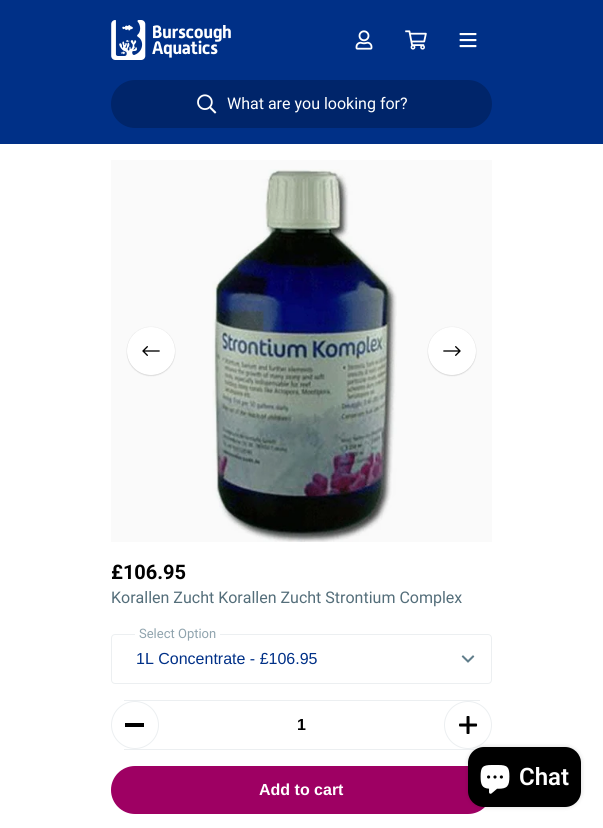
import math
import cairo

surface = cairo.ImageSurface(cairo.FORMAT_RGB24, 603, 828)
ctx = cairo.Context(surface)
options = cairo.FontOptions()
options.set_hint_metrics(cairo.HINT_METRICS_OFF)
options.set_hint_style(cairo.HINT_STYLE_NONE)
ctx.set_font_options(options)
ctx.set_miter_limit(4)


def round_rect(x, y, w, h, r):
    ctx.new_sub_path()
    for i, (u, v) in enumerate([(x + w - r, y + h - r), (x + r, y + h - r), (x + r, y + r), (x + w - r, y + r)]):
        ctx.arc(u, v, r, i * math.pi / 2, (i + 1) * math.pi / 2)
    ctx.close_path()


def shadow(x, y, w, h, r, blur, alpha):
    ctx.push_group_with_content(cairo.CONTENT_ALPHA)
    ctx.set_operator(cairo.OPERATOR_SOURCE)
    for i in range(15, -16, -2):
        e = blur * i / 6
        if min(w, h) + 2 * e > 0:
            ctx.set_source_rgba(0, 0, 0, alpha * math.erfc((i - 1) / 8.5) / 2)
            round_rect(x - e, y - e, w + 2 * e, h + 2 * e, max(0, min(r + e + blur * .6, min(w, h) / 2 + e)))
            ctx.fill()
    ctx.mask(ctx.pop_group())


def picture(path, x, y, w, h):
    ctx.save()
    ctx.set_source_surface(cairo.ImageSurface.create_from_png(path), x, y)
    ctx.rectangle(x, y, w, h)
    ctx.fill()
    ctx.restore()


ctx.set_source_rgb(1, 1, 1)
ctx.paint()
ctx.set_source_rgb(0.98, 0.98, 0.98)
ctx.rectangle(111, 160, 381, 382)
ctx.fill()
ctx.set_source_rgb(0, 0.188, 0.529)
ctx.rectangle(0, 0, 603, 144)
ctx.fill()
picture("img1.png", 111, 20, 120, 40)
picture("img2.png", 355, 30, 18, 20)
picture("img3.png", 405, 30, 22, 20)
picture("img4.png", 459, 33, 18, 15)
ctx.set_source_rgb(0, 0.145, 0.416)
round_rect(111, 80, 381, 48, 24)
ctx.fill()
picture("img5.png", 197, 94, 20, 20)
ctx.select_font_face("Roboto")
ctx.set_font_size(16)
ctx.set_source_rgb(1, 1, 1)
ctx.move_to(227, 109)
ctx.show_text("What are you looking for?")
ctx.set_source_rgb(0, 0, 0)
shadow(127, 328, 48, 48, 24, 0.5, 0.1)
shadow(127, 327, 48, 48, 24, 0.5, 0.1)
ctx.set_source_rgb(1, 1, 1)
ctx.arc(151, 351, 24, 0, 2 * math.pi)
ctx.fill()
picture("img6.png", 142, 346, 18, 10)
picture("img7.png", 212, 169, 185, 373)
ctx.set_source_rgb(0, 0, 0)
shadow(428, 328, 48, 48, 24, 0.5, 0.1)
shadow(428, 327, 48, 48, 24, 0.5, 0.1)
ctx.set_source_rgb(1, 1, 1)
ctx.arc(452, 351, 24, 0, 2 * math.pi)
ctx.fill()
picture("img8.png", 443, 346, 18, 10)
ctx.select_font_face("Roboto", cairo.FONT_SLANT_NORMAL, cairo.FONT_WEIGHT_BOLD)
ctx.set_font_size(20)
ctx.set_source_rgb(0, 0, 0)
ctx.move_to(111, 579)
ctx.show_text("£106.95")
ctx.select_font_face("Roboto")
ctx.set_font_size(16)
ctx.set_source_rgb(0.329, 0.431, 0.478)
ctx.move_to(111, 603)
ctx.show_text("Korallen Zucht Korallen Zucht Strontium Complex")
round_rect(111.5, 634.5, 380, 49, 3.5)
ctx.set_source_rgb(0.925, 0.937, 0.945)
ctx.set_line_width(1)
ctx.stroke()
ctx.set_source_rgb(1, 1, 1)
ctx.rectangle(135, 634, 85, 1)
ctx.fill()
ctx.set_font_size(13)
ctx.set_source_rgb(0.565, 0.643, 0.682)
ctx.move_to(139, 638)
ctx.show_text("Select Option")
ctx.select_font_face("Liberation Sans")
ctx.set_font_size(16)
ctx.set_source_rgb(0, 0.188, 0.529)
ctx.move_to(136, 664)
ctx.show_text("1L Concentrate - £106.95")
picture("img9.png", 461, 655, 14, 8)
ctx.set_source_rgb(0.925, 0.937, 0.945)
ctx.rectangle(124, 700, 356, 1)
ctx.fill()
ctx.rectangle(124, 749, 356, 1)
ctx.fill()
ctx.arc(135, 725, 23.5, 0, 2 * math.pi)
ctx.stroke()
ctx.set_source_rgb(0, 0, 0)
ctx.rectangle(125, 723, 19, 4)
ctx.fill()
ctx.select_font_face("Liberation Sans", cairo.FONT_SLANT_NORMAL, cairo.FONT_WEIGHT_BOLD)
ctx.move_to(297, 730)
ctx.show_text("1")
ctx.new_path()
ctx.arc(468, 725, 23.5, 0, 2 * math.pi)
ctx.set_source_rgb(0.925, 0.937, 0.945)
ctx.stroke()
picture("img10.png", 459, 716, 19, 18)
ctx.set_source_rgb(0.62, 0, 0.388)
round_rect(111, 766, 381, 48, 24)
ctx.fill()
ctx.set_source_rgb(1, 1, 1)
ctx.move_to(259, 795)
ctx.show_text("Add to cart")
ctx.set_source_rgb(0, 0, 0)
shadow(468, 747, 113, 60, 16, 2.5, 0.15)
ctx.set_source_rgb(0, 0, 0)
round_rect(468, 747, 113, 60, 16)
ctx.fill()
picture("img11.png", 480, 765, 30, 29)
ctx.select_font_face("Roboto SemiBold")
ctx.set_font_size(24)
ctx.set_source_rgb(1, 1, 1)
ctx.move_to(519, 785)
ctx.show_text("Chat")
surface.write_to_png("page.png")
